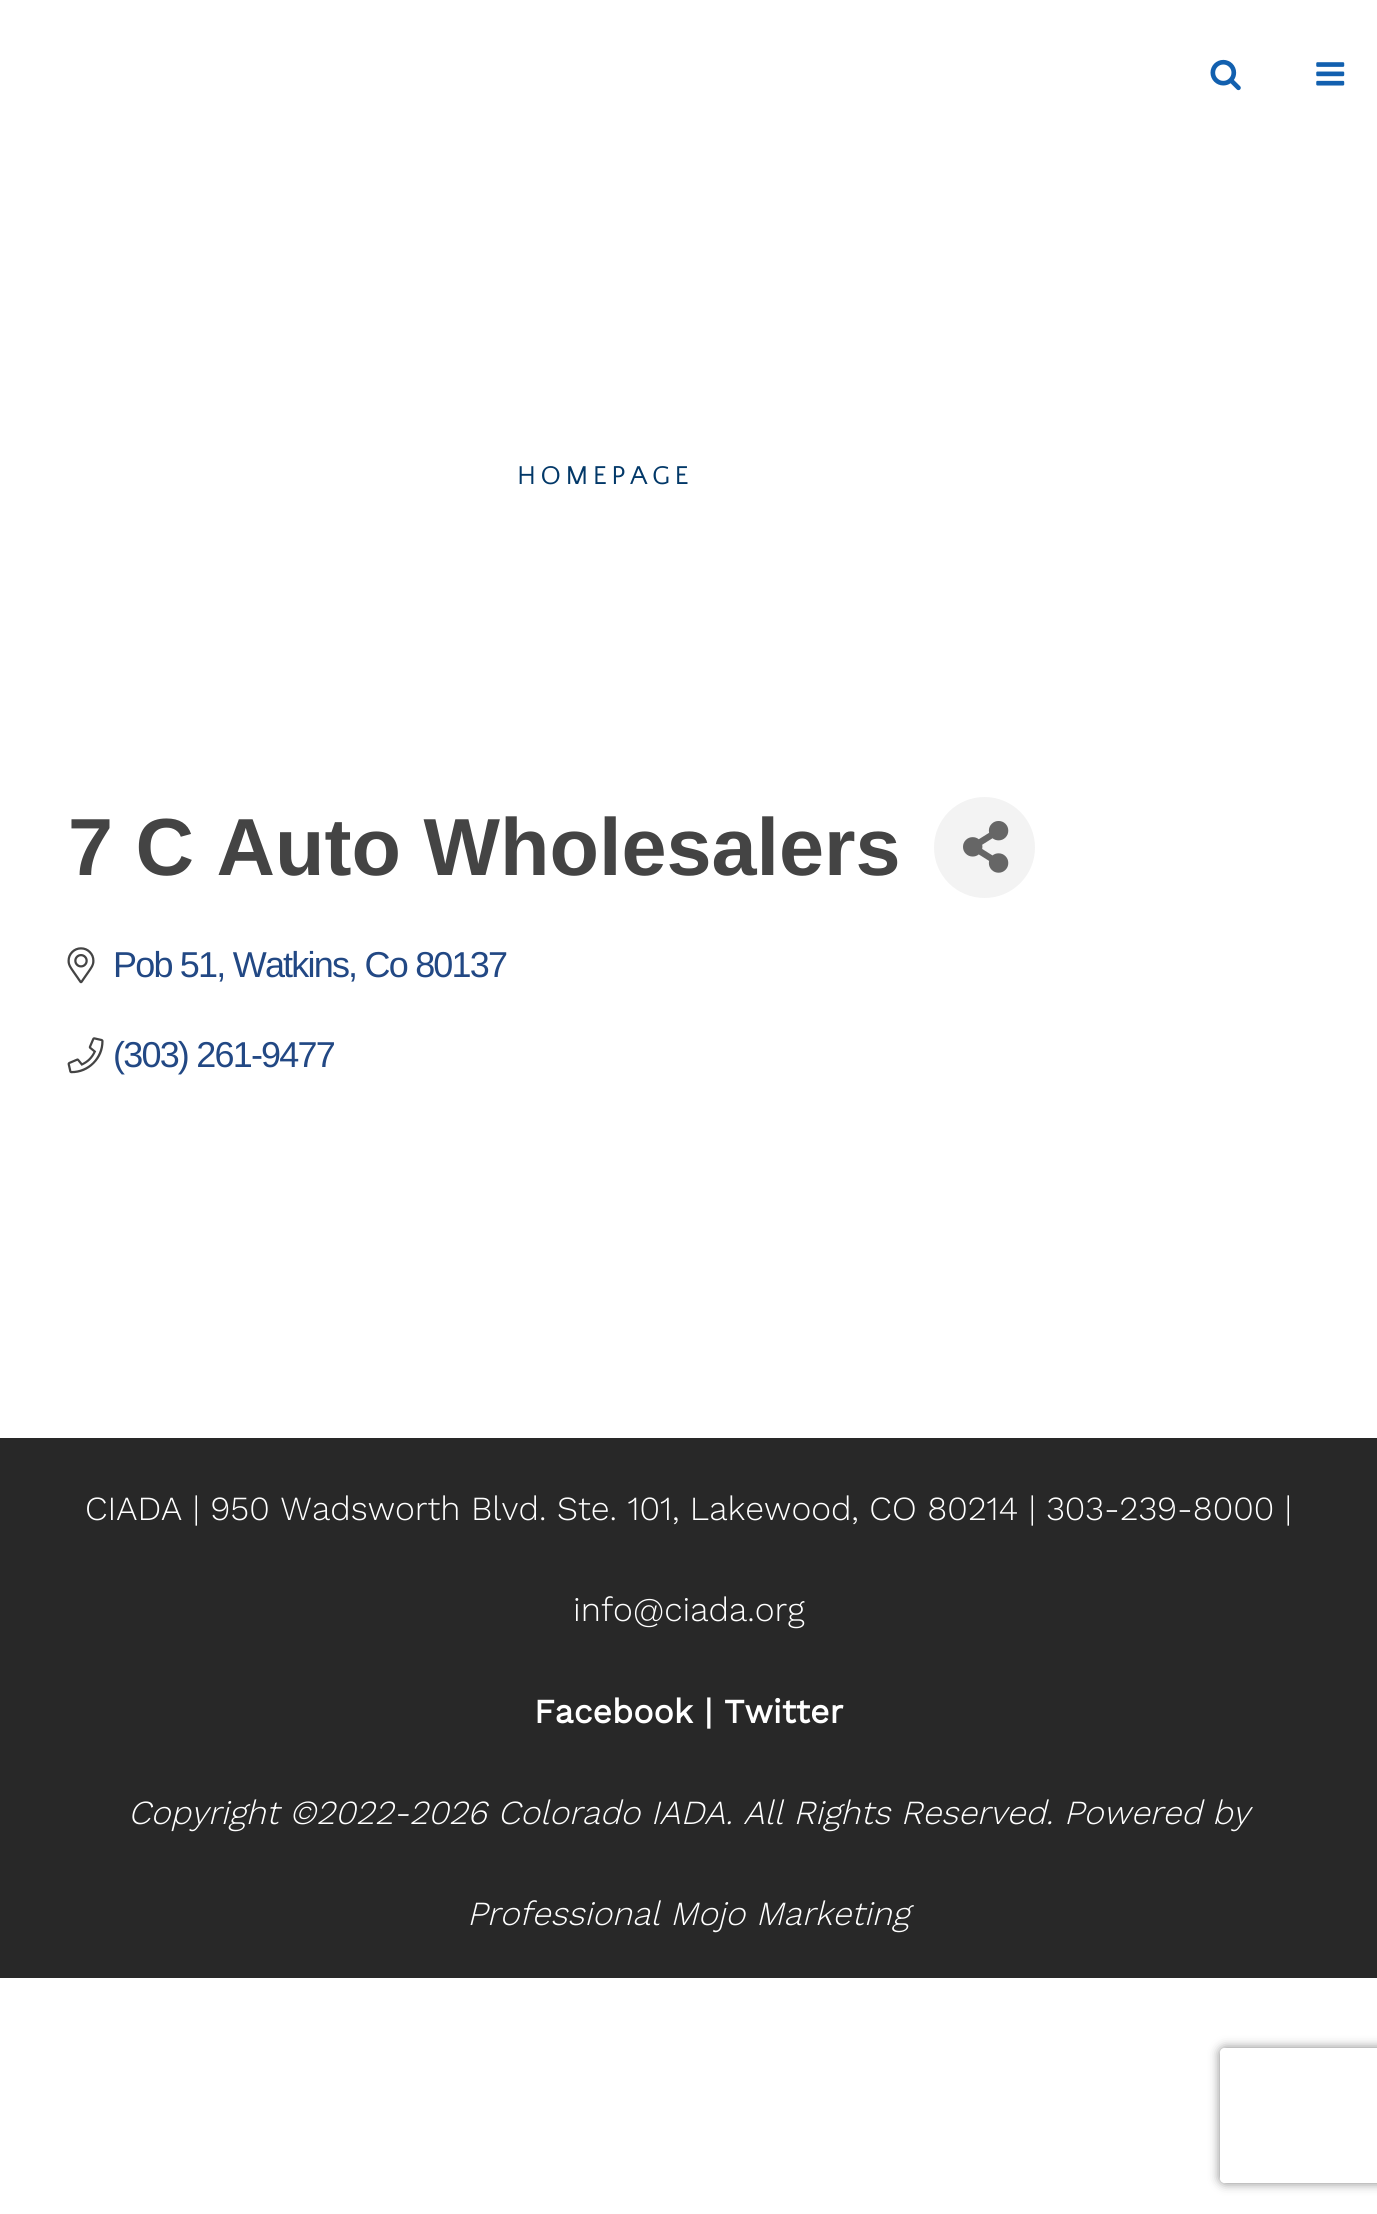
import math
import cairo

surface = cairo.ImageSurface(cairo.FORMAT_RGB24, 1377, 2214)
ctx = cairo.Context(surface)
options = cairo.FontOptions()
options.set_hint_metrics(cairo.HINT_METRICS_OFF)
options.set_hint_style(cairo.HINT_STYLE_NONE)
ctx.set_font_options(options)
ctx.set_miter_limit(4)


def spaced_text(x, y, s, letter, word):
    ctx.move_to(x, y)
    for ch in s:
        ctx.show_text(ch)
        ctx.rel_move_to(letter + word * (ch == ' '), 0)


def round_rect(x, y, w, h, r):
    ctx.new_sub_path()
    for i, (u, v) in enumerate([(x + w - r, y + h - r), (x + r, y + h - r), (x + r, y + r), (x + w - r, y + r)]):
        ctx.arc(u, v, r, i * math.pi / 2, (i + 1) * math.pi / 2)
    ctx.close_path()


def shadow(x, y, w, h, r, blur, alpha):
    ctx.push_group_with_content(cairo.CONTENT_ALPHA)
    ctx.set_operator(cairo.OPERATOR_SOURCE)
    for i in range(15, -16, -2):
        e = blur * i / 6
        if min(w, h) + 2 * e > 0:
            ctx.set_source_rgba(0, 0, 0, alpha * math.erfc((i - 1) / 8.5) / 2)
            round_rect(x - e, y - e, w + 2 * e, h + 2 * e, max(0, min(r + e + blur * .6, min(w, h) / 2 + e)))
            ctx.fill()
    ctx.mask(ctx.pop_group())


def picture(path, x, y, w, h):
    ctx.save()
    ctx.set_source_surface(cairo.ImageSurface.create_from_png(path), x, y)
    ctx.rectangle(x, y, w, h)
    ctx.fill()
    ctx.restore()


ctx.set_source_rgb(1, 1, 1)
ctx.paint()
picture("img1.png", 1210, 59, 31, 32)
picture("img2.png", 1316, 62, 29, 24)
ctx.select_font_face("Quattrocento Sans")
ctx.set_font_size(27)
ctx.set_source_rgb(0.008, 0.22, 0.408)
spaced_text(517, 484, "HOMEPAGE", 4.5, 0)
ctx.select_font_face("Liberation Sans", cairo.FONT_SLANT_NORMAL, cairo.FONT_WEIGHT_BOLD)
ctx.set_font_size(81)
ctx.set_source_rgb(0.267, 0.267, 0.267)
ctx.move_to(68, 875)
ctx.show_text("7 C Auto Wholesalers")
ctx.set_source_rgb(0.953, 0.953, 0.953)
ctx.new_path()
ctx.arc(984.5, 847.5, 50.5, 0, 2 * math.pi)
ctx.fill()
picture("img3.png", 963, 821, 46, 52)
picture("img4.png", 67, 947, 28, 37)
ctx.select_font_face("Liberation Sans")
ctx.set_font_size(36)
ctx.set_source_rgb(0.133, 0.282, 0.518)
spaced_text(113, 977, "Pob 51, Watkins, Co 80137", -1.8, 0)
picture("img5.png", 67, 1037, 37, 37)
spaced_text(113, 1067, "(303) 261-9477", -1.8, 0)
ctx.set_source_rgb(0.157, 0.157, 0.157)
ctx.rectangle(0, 1438, 1377, 540)
ctx.fill()
ctx.select_font_face("Work Sans Light")
ctx.set_font_size(33.75)
ctx.set_source_rgb(1, 1, 1)
ctx.move_to(85, 1520)
ctx.show_text("CIADA | 950 Wadsworth Blvd. Ste. 101, Lakewood, CO 80214 | 303-239-8000 |")
ctx.move_to(573, 1621)
ctx.show_text("info@ciada.org")
ctx.select_font_face("Work Sans", cairo.FONT_SLANT_NORMAL, cairo.FONT_WEIGHT_BOLD)
ctx.move_to(534, 1723)
ctx.show_text("Facebook | Twitter")
ctx.select_font_face("Work Sans Light", cairo.FONT_SLANT_ITALIC)
ctx.move_to(128, 1824)
ctx.show_text("Copyright ©2022-2026 Colorado IADA. All Rights Reserved. Powered by")
ctx.move_to(467, 1925)
ctx.show_text("Professional Mojo Marketing")
ctx.save()
ctx.set_fill_rule(cairo.FILL_RULE_EVEN_ODD)
ctx.new_path()
ctx.move_to(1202, 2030)
ctx.line_to(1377, 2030)
ctx.line_to(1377, 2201)
ctx.line_to(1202, 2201)
ctx.close_path()
ctx.move_to(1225, 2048)
ctx.line_to(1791, 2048)
ctx.curve_to(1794, 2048, 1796, 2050, 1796, 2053)
ctx.line_to(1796, 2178)
ctx.curve_to(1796, 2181, 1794, 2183, 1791, 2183)
ctx.line_to(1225, 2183)
ctx.curve_to(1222, 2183, 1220, 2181, 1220, 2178)
ctx.line_to(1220, 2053)
ctx.curve_to(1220, 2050, 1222, 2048, 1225, 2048)
ctx.close_path()
ctx.clip()
ctx.set_source_rgb(0.502, 0.502, 0.502)
shadow(1220, 2048, 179, 135, 5, 5.5, 1)
ctx.restore()
surface.write_to_png("page.png")
